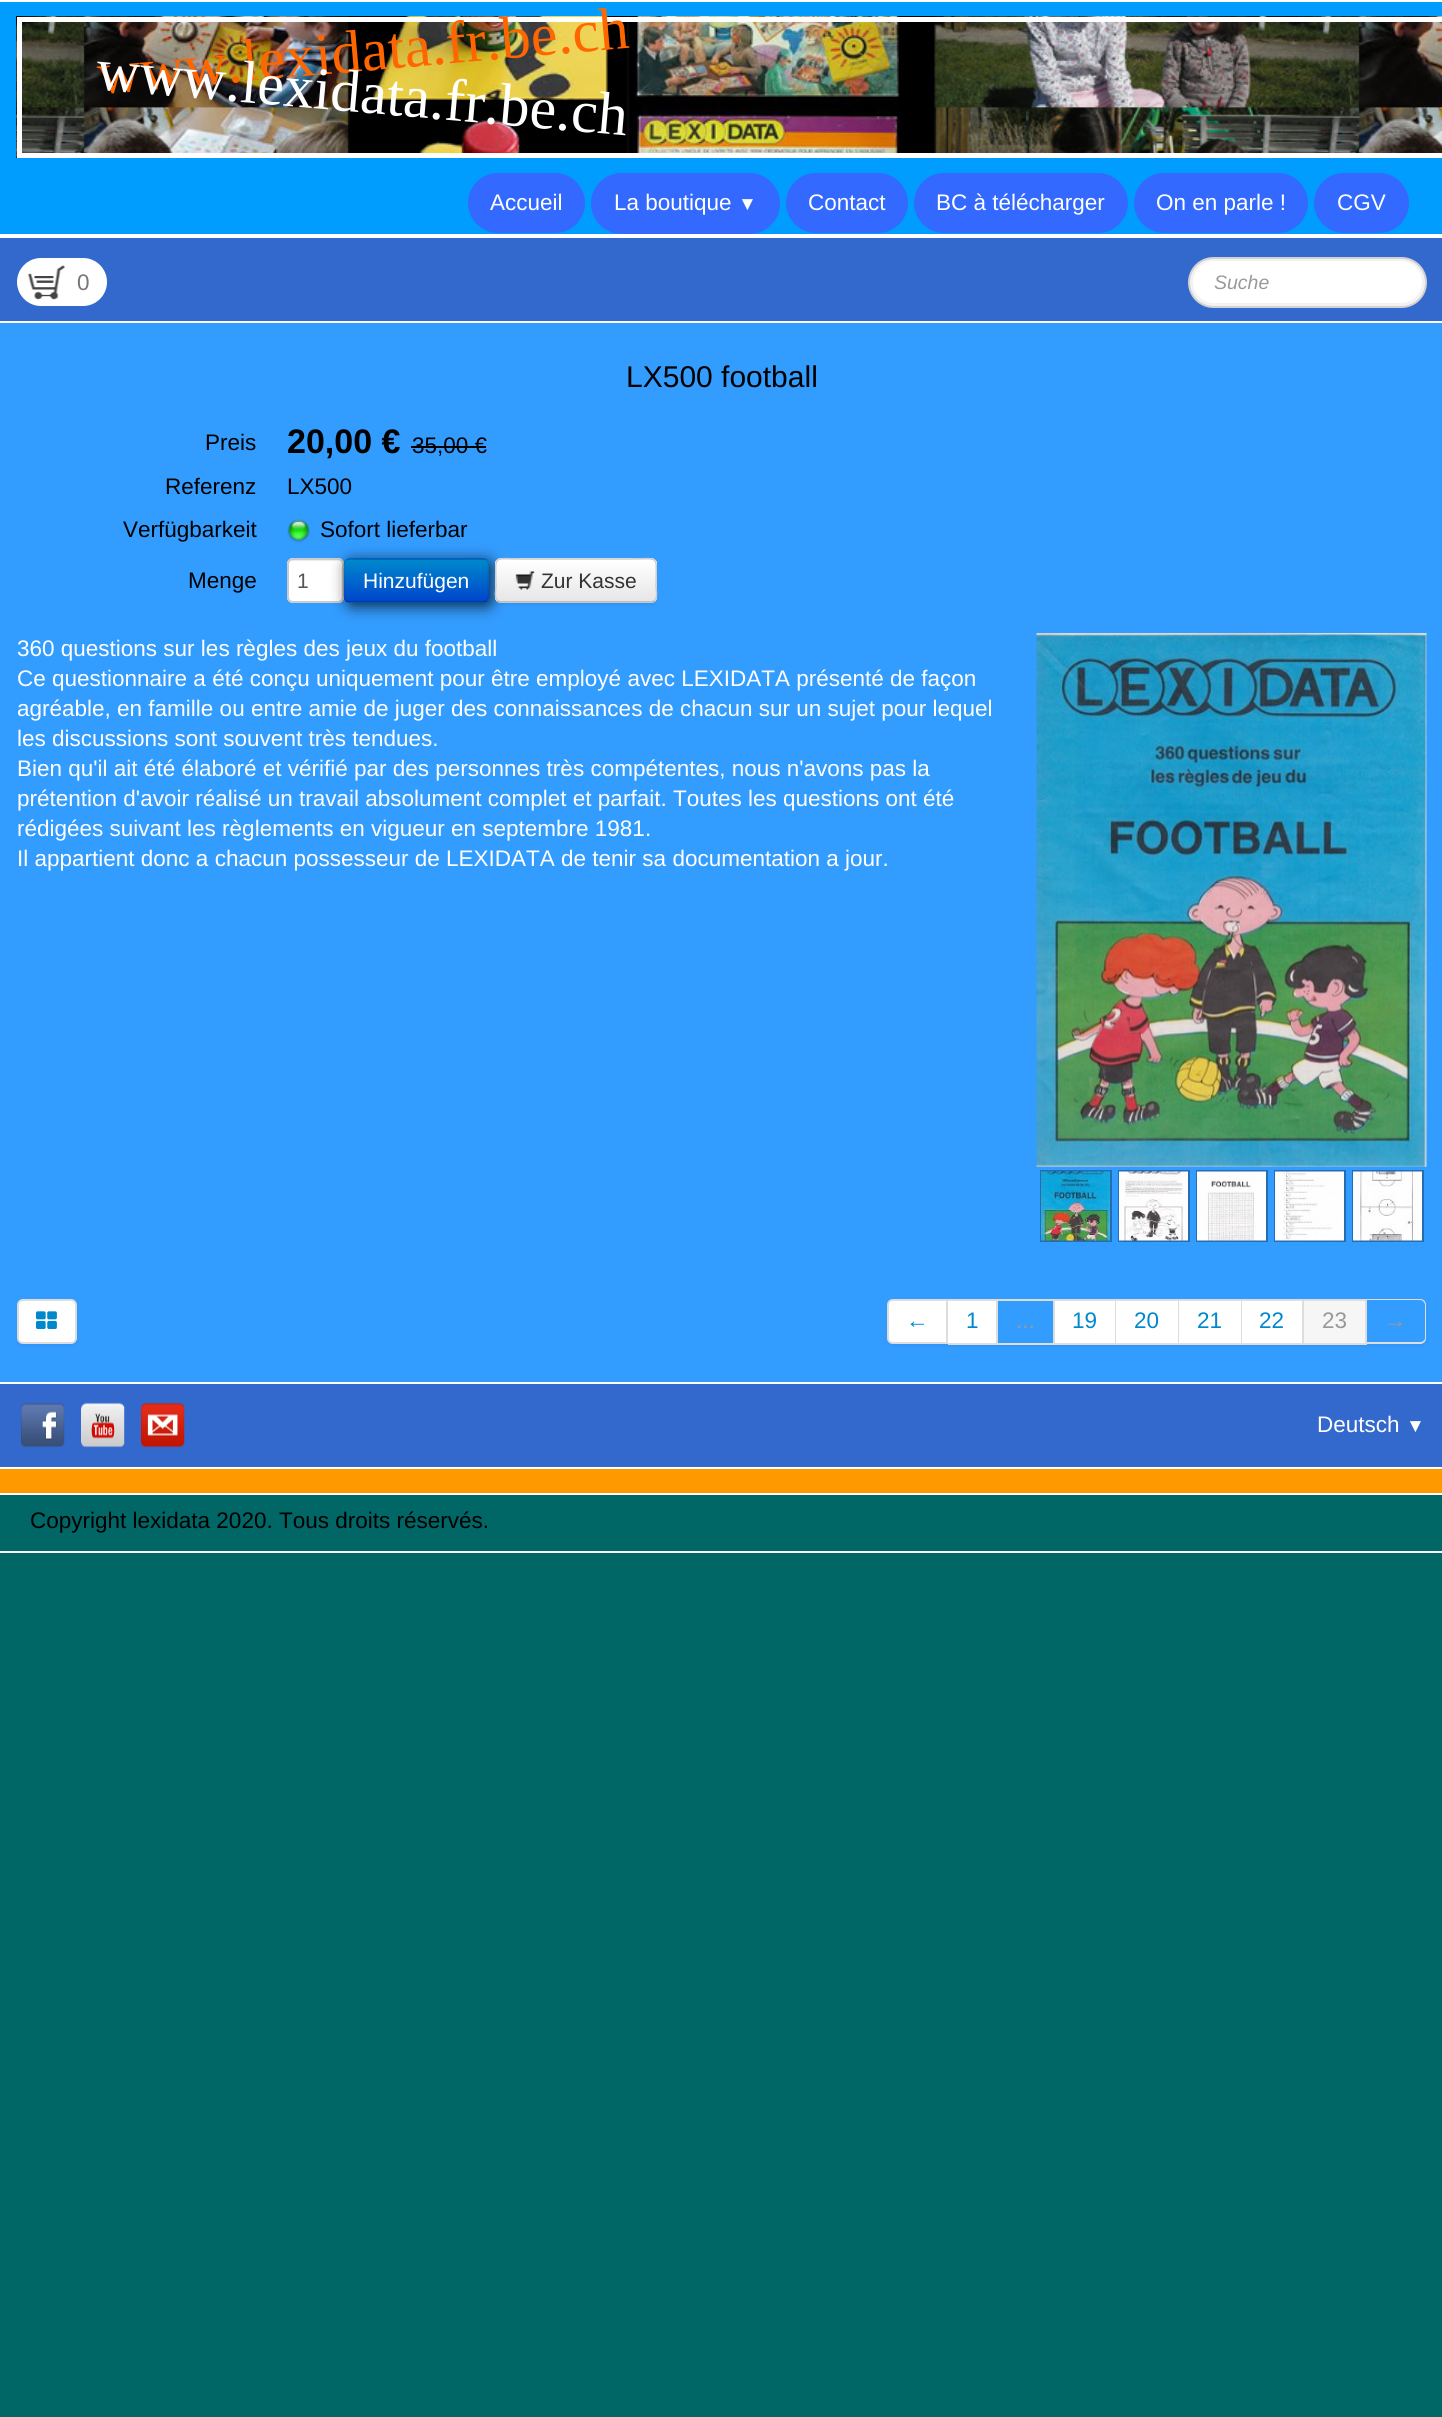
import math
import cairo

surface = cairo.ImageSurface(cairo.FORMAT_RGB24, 1442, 2417)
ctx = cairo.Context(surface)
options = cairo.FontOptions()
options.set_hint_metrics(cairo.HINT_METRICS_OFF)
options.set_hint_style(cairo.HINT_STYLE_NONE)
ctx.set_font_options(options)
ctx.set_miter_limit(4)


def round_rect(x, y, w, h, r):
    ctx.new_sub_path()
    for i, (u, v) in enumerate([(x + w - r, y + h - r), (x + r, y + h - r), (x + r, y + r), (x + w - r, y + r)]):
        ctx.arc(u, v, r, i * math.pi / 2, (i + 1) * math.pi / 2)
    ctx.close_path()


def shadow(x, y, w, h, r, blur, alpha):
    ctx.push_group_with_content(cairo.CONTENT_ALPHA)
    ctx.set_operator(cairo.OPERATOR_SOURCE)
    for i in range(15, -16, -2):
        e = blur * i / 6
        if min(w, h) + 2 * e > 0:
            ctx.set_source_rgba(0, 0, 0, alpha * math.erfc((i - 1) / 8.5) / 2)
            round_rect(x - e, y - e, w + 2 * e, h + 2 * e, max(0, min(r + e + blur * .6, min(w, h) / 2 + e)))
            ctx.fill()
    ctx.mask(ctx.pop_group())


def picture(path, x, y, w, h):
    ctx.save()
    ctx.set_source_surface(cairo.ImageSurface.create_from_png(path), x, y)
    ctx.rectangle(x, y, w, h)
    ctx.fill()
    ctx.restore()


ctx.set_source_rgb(0, 0.4, 0.4)
ctx.paint()
ctx.set_source_rgb(0, 0.616, 1)
ctx.rectangle(0, 2, 1442, 232)
ctx.fill()
ctx.set_source_rgb(1, 1, 1)
ctx.rectangle(0, 0, 1442, 2)
ctx.fill()
ctx.rectangle(0, 234, 1442, 4)
ctx.fill()
picture("img1.png", 16, 16, 1426, 142)
ctx.rectangle(19.5, 19.5, 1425, 136)
ctx.set_line_width(5)
ctx.stroke()
ctx.select_font_face("Liberation Serif")
ctx.set_font_size(60)
ctx.set_source_rgb(1, 0.4, 0)
ctx.save()
ctx.translate(99, 94)
ctx.rotate(-5 * math.pi / 180)
ctx.move_to(0, 0)
ctx.show_text("www.lexidata.fr.be.ch")
ctx.restore()
ctx.set_source_rgb(1, 1, 1)
ctx.save()
ctx.translate(95, 89)
ctx.rotate(5 * math.pi / 180)
ctx.move_to(0, 0)
ctx.show_text("www.lexidata.fr.be.ch")
ctx.restore()
ctx.set_source_rgb(0.2, 0.412, 1)
round_rect(468, 173, 117, 60, 30)
ctx.fill()
ctx.select_font_face("Liberation Sans")
ctx.set_font_size(22.5)
ctx.set_source_rgb(1, 1, 1)
ctx.move_to(490, 210)
ctx.show_text("Accueil")
ctx.set_source_rgb(0.2, 0.412, 1)
round_rect(591, 173, 189, 61, 30.5)
ctx.fill()
ctx.set_source_rgb(1, 1, 1)
ctx.move_to(614, 210)
ctx.show_text("La boutique")
ctx.set_font_size(19)
ctx.move_to(738, 210)
ctx.show_text("▼")
ctx.set_source_rgb(0.2, 0.412, 1)
round_rect(786, 173, 122, 60, 30)
ctx.fill()
ctx.set_font_size(22.5)
ctx.set_source_rgb(1, 1, 1)
ctx.move_to(808, 210)
ctx.show_text("Contact")
ctx.set_source_rgb(0.2, 0.412, 1)
round_rect(914, 173, 214, 60, 30)
ctx.fill()
ctx.set_source_rgb(1, 1, 1)
ctx.move_to(936, 210)
ctx.show_text("BC à télécharger")
ctx.set_source_rgb(0.2, 0.412, 1)
round_rect(1134, 173, 174, 60, 30)
ctx.fill()
ctx.set_source_rgb(1, 1, 1)
ctx.move_to(1156, 210)
ctx.show_text("On en parle !")
ctx.set_source_rgb(0.2, 0.412, 1)
round_rect(1314, 173, 95, 60, 30)
ctx.fill()
ctx.set_source_rgb(1, 1, 1)
ctx.move_to(1337, 210)
ctx.show_text("CGV")
ctx.set_source_rgb(0.2, 0.612, 1)
ctx.rectangle(0, 323, 1442, 1059)
ctx.fill()
ctx.set_source_rgb(0.2, 0.412, 0.8)
ctx.rectangle(0, 238, 1442, 83)
ctx.fill()
ctx.set_source_rgb(1, 1, 1)
ctx.rectangle(0, 321, 1442, 2)
ctx.fill()
round_rect(17, 258, 90, 48, 24)
ctx.fill()
picture("img2.png", 28, 265, 37, 35)
ctx.set_source_rgb(0.467, 0.467, 0.467)
ctx.move_to(77, 290)
ctx.show_text("0")
ctx.set_source_rgb(0.949, 0.949, 0.949)
round_rect(1189, 258, 237, 49, 24.5)
ctx.fill_preserve()
ctx.set_source_rgb(0.82, 0.82, 0.82)
ctx.set_line_width(2)
ctx.stroke()
ctx.set_source_rgb(1, 1, 1)
round_rect(1193, 261, 229, 42, 21)
ctx.fill()
ctx.select_font_face("Liberation Sans", cairo.FONT_SLANT_ITALIC)
ctx.set_font_size(19.5)
ctx.set_source_rgb(0.6, 0.6, 0.6)
ctx.move_to(1214, 289)
ctx.show_text("Suche")
ctx.select_font_face("Liberation Sans")
ctx.set_font_size(30)
ctx.set_source_rgb(0, 0, 0)
ctx.move_to(626, 387)
ctx.show_text("LX500 football")
ctx.set_font_size(22.5)
ctx.move_to(205, 450)
ctx.show_text("Preis")
ctx.select_font_face("Liberation Sans", cairo.FONT_SLANT_NORMAL, cairo.FONT_WEIGHT_BOLD)
ctx.set_font_size(34)
ctx.move_to(287, 453)
ctx.show_text("20,00 €")
ctx.select_font_face("Liberation Sans")
ctx.set_font_size(22.5)
ctx.move_to(412, 453)
ctx.show_text("35,00 €")
ctx.rectangle(411, 446, 75, 2)
ctx.fill()
ctx.move_to(165, 494)
ctx.show_text("Referenz")
ctx.move_to(287, 494)
ctx.show_text("LX500")
ctx.move_to(123, 537)
ctx.show_text("Verfügbarkeit")
picture("img3.png", 287, 519, 23, 24)
ctx.move_to(320, 537)
ctx.show_text("Sofort lieferbar")
ctx.move_to(188, 588)
ctx.show_text("Menge")
ctx.set_source_rgb(1, 1, 1)
round_rect(287, 558, 57, 45, 6)
ctx.fill()
ctx.set_source_rgb(0.925, 0.925, 0.925)
ctx.new_path()
ctx.move_to(292, 561)
ctx.line_to(338, 561)
ctx.curve_to(340, 561, 342, 563, 342, 566)
ctx.curve_to(342, 558, 335, 560, 330, 560)
ctx.line_to(300, 560)
ctx.curve_to(295, 560, 288, 558, 288, 566)
ctx.curve_to(288, 563, 290, 561, 292, 561)
ctx.close_path()
ctx.fill()
round_rect(288, 559, 55, 43, 5)
ctx.set_source_rgb(0.8, 0.8, 0.8)
ctx.stroke()
ctx.set_font_size(21)
ctx.set_source_rgb(0.333, 0.333, 0.333)
ctx.move_to(297, 588)
ctx.show_text("1")
ctx.set_source_rgb(0, 0, 0)
shadow(347, 561, 145, 45, 6, 7.5, 0.75)
ctx.set_source_rgb(0, 0.427, 0.8)
round_rect(344, 558, 145, 45, 6)
ctx.fill()
ctx.save()
round_rect(344, 558, 145, 45, 6)
ctx.clip()
gradient = cairo.LinearGradient(416, 560, 416, 602)
gradient.add_color_stop_rgba(0, 0, 0.533, 0.8, 1)
gradient.add_color_stop_rgba(1, 0, 0.267, 0.8, 1)
ctx.set_source(gradient)
ctx.rectangle(344, 560, 145, 42)
ctx.fill()
ctx.restore()
ctx.new_path()
ctx.move_to(486.5, 600.5)
ctx.curve_to(485.5, 601.5, 484.5, 602, 483, 602)
ctx.line_to(349.5, 602)
ctx.curve_to(348, 602, 347, 601.5, 346, 600.5)
ctx.set_source_rgba(0, 0, 0, 0.25)
ctx.set_line_width(1.5)
ctx.stroke()
ctx.new_path()
ctx.move_to(346, 600.5)
ctx.curve_to(342.5, 597.5, 344, 589.5, 344, 586)
ctx.curve_to(344, 554, 338.5, 559, 372, 559)
ctx.line_to(461, 559)
ctx.curve_to(494, 559, 488, 554, 488, 586)
ctx.curve_to(488, 589.5, 490, 597.5, 486.5, 600.5)
ctx.set_source_rgba(0, 0, 0, 0.1)
ctx.stroke()
ctx.set_source_rgb(1, 1, 1)
ctx.move_to(363, 588)
ctx.show_text("Hinzufügen")
ctx.set_source_rgb(0, 0, 0)
shadow(495, 560, 162, 45, 6, 1.5, 0.05)
ctx.set_source_rgb(0.961, 0.961, 0.961)
round_rect(495, 558, 162, 45, 6)
ctx.fill()
ctx.save()
round_rect(495, 558, 162, 45, 6)
ctx.clip()
gradient = cairo.LinearGradient(576, 560, 576, 602)
gradient.add_color_stop_rgba(0, 1, 1, 1, 1)
gradient.add_color_stop_rgba(1, 0.902, 0.902, 0.902, 1)
ctx.set_source(gradient)
ctx.rectangle(495, 560, 162, 42)
ctx.fill()
ctx.restore()
ctx.new_path()
ctx.move_to(654.5, 600.5)
ctx.curve_to(653.5, 601.5, 652.5, 602, 651, 602)
ctx.line_to(501, 602)
ctx.curve_to(499.5, 602, 498.5, 601.5, 497.5, 600.5)
ctx.set_source_rgb(0.702, 0.702, 0.702)
ctx.stroke()
ctx.new_path()
ctx.move_to(497.5, 600.5)
ctx.curve_to(494, 597.5, 496, 589.5, 496, 586)
ctx.curve_to(496, 553, 490.5, 559, 526, 559)
ctx.line_to(626, 559)
ctx.curve_to(661.5, 559, 656, 553, 656, 586)
ctx.curve_to(656, 589.5, 658, 597.5, 654.5, 600.5)
ctx.set_source_rgb(0.8, 0.8, 0.8)
ctx.stroke()
picture("img4.png", 515, 571, 20, 19)
ctx.set_source_rgb(0.2, 0.2, 0.2)
ctx.move_to(541, 588)
ctx.show_text("Zur Kasse")
ctx.set_font_size(22.5)
ctx.set_source_rgb(1, 1, 1)
ctx.move_to(17, 656)
ctx.show_text("360 questions sur les règles des jeux du football")
ctx.move_to(17, 686)
ctx.show_text("Ce questionnaire a été conçu uniquement pour être employé avec LEXIDATA présenté de façon")
ctx.move_to(17, 716)
ctx.show_text("agréable, en famille ou entre amie de juger des connaissances de chacun sur un sujet pour lequel")
ctx.move_to(17, 746)
ctx.show_text("les discussions sont souvent très tendues.")
ctx.move_to(17, 776)
ctx.show_text("Bien qu'il ait été élaboré et vérifié par des personnes très compétentes, nous n'avons pas la")
ctx.move_to(17, 806)
ctx.show_text("prétention d'avoir réalisé un travail absolument complet et parfait. Toutes les questions ont été")
ctx.move_to(17, 836)
ctx.show_text("rédigées suivant les règlements en vigueur en septembre 1981.")
ctx.move_to(17, 866)
ctx.show_text("Il appartient donc a chacun possesseur de LEXIDATA de tenir sa documentation a jour.")
picture("img5.png", 1036, 633, 391, 534)
ctx.rectangle(1041, 1171, 70, 70)
ctx.set_source_rgb(0.141, 0.427, 0.702)
ctx.set_line_width(2)
ctx.stroke()
ctx.rectangle(1119, 1171, 70, 70)
ctx.stroke()
ctx.rectangle(1197, 1171, 70, 70)
ctx.stroke()
ctx.rectangle(1275, 1171, 70, 70)
ctx.stroke()
ctx.rectangle(1353, 1171, 70, 70)
ctx.stroke()
picture("img6.png", 1041, 1171, 69, 70)
picture("img7.png", 1119, 1171, 69, 70)
picture("img8.png", 1197, 1171, 69, 70)
picture("img9.png", 1275, 1171, 69, 70)
picture("img10.png", 1353, 1171, 69, 70)
ctx.set_source_rgb(0, 0, 0)
shadow(17, 1301, 60, 45, 6, 1.5, 0.05)
ctx.set_source_rgb(1, 1, 1)
round_rect(18, 1300, 58, 43, 5)
ctx.fill_preserve()
ctx.set_source_rgb(0.867, 0.867, 0.867)
ctx.stroke()
picture("img11.png", 36, 1311, 21, 18)
ctx.save()
ctx.set_fill_rule(cairo.FILL_RULE_EVEN_ODD)
ctx.new_path()
ctx.move_to(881, 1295)
ctx.line_to(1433, 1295)
ctx.line_to(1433, 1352)
ctx.line_to(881, 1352)
ctx.close_path()
ctx.move_to(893, 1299)
ctx.line_to(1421, 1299)
ctx.curve_to(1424.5, 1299, 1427, 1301.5, 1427, 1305)
ctx.line_to(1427, 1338)
ctx.curve_to(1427, 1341.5, 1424.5, 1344, 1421, 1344)
ctx.line_to(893, 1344)
ctx.curve_to(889.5, 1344, 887, 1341.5, 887, 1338)
ctx.line_to(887, 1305)
ctx.curve_to(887, 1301.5, 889.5, 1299, 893, 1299)
ctx.close_path()
ctx.clip()
ctx.set_source_rgb(0, 0, 0)
shadow(887, 1301, 540, 45, 6, 1.5, 0.05)
ctx.restore()
ctx.set_source_rgb(1, 1, 1)
ctx.new_path()
ctx.move_to(893, 1300)
ctx.line_to(947, 1300)
ctx.line_to(947, 1343)
ctx.line_to(893, 1343)
ctx.curve_to(890, 1343, 888, 1341, 888, 1338)
ctx.line_to(888, 1305)
ctx.curve_to(888, 1302, 890, 1300, 893, 1300)
ctx.close_path()
ctx.fill_preserve()
ctx.set_source_rgb(0.867, 0.867, 0.867)
ctx.stroke()
ctx.set_source_rgb(0, 0.533, 0.8)
ctx.move_to(906, 1328)
ctx.show_text("←")
ctx.set_source_rgb(1, 1, 1)
ctx.rectangle(948, 1301, 48, 42)
ctx.fill()
ctx.set_source_rgb(0.867, 0.867, 0.867)
ctx.rectangle(948, 1299, 419, 2)
ctx.fill()
ctx.rectangle(996, 1299, 2, 45)
ctx.fill()
ctx.rectangle(948, 1343, 50, 2)
ctx.fill()
ctx.set_source_rgb(0, 0.533, 0.8)
ctx.move_to(966, 1328)
ctx.show_text("1")
ctx.set_source_rgb(0.867, 0.867, 0.867)
ctx.rectangle(1053, 1299, 2, 45)
ctx.fill()
ctx.rectangle(998, 1343, 57, 2)
ctx.fill()
ctx.set_source_rgb(0.6, 0.6, 0.6)
ctx.move_to(1016, 1328)
ctx.show_text("...")
ctx.set_source_rgb(1, 1, 1)
ctx.rectangle(1055, 1301, 60, 42)
ctx.fill()
ctx.set_source_rgb(0.867, 0.867, 0.867)
ctx.rectangle(1115, 1299, 1, 45)
ctx.fill()
ctx.rectangle(1055, 1343, 61, 2)
ctx.fill()
ctx.set_source_rgb(0, 0.533, 0.8)
ctx.move_to(1072, 1328)
ctx.show_text("19")
ctx.set_source_rgb(1, 1, 1)
ctx.rectangle(1116, 1301, 62, 42)
ctx.fill()
ctx.set_source_rgb(0.867, 0.867, 0.867)
ctx.rectangle(1178, 1299, 1, 45)
ctx.fill()
ctx.rectangle(1116, 1343, 63, 2)
ctx.fill()
ctx.set_source_rgb(0, 0.533, 0.8)
ctx.move_to(1134, 1328)
ctx.show_text("20")
ctx.set_source_rgb(1, 1, 1)
ctx.rectangle(1179, 1301, 62, 42)
ctx.fill()
ctx.set_source_rgb(0.867, 0.867, 0.867)
ctx.rectangle(1241, 1299, 1, 45)
ctx.fill()
ctx.rectangle(1179, 1343, 63, 2)
ctx.fill()
ctx.set_source_rgb(0, 0.533, 0.8)
ctx.move_to(1197, 1328)
ctx.show_text("21")
ctx.set_source_rgb(1, 1, 1)
ctx.rectangle(1242, 1301, 60, 42)
ctx.fill()
ctx.set_source_rgb(0.867, 0.867, 0.867)
ctx.rectangle(1302, 1299, 2, 45)
ctx.fill()
ctx.rectangle(1242, 1343, 62, 2)
ctx.fill()
ctx.set_source_rgb(0, 0.533, 0.8)
ctx.move_to(1259, 1328)
ctx.show_text("22")
ctx.set_source_rgb(0.961, 0.961, 0.961)
ctx.rectangle(1304, 1301, 61, 42)
ctx.fill()
ctx.set_source_rgb(0.867, 0.867, 0.867)
ctx.rectangle(1365, 1299, 2, 45)
ctx.fill()
ctx.rectangle(1304, 1343, 63, 2)
ctx.fill()
ctx.set_source_rgb(0.6, 0.6, 0.6)
ctx.move_to(1322, 1328)
ctx.show_text("23")
ctx.set_source_rgb(0.867, 0.867, 0.867)
ctx.set_fill_rule(cairo.FILL_RULE_EVEN_ODD)
ctx.new_path()
ctx.move_to(1366, 1299)
ctx.line_to(1420, 1299)
ctx.curve_to(1424, 1299, 1426, 1302, 1426, 1305)
ctx.line_to(1426, 1338)
ctx.curve_to(1426, 1341, 1424, 1344, 1420, 1344)
ctx.line_to(1366, 1344)
ctx.close_path()
ctx.move_to(1366, 1300)
ctx.line_to(1420, 1300)
ctx.curve_to(1423, 1300, 1425, 1303, 1425, 1305)
ctx.line_to(1425, 1338)
ctx.curve_to(1425, 1340, 1423, 1342, 1420, 1342)
ctx.line_to(1366, 1342)
ctx.close_path()
ctx.fill()
ctx.set_source_rgb(0.6, 0.6, 0.6)
ctx.move_to(1384, 1328)
ctx.show_text("→")
ctx.set_source_rgb(0.2, 0.412, 0.8)
ctx.rectangle(-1, 1383, 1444, 85)
ctx.fill_preserve()
ctx.set_source_rgb(1, 1, 1)
ctx.stroke()
picture("img12.png", 21, 1402, 44, 46)
picture("img13.png", 81, 1402, 44, 46)
picture("img14.png", 141, 1402, 44, 46)
ctx.move_to(1317, 1432)
ctx.show_text("Deutsch")
ctx.set_font_size(19)
ctx.move_to(1406, 1432)
ctx.show_text("▼")
ctx.set_source_rgb(1, 0.6, 0)
ctx.rectangle(0, 1469, 1442, 24)
ctx.fill()
ctx.rectangle(-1, 1494, 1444, 58)
ctx.set_source_rgb(1, 1, 1)
ctx.stroke()
ctx.set_font_size(22.5)
ctx.set_source_rgb(0, 0, 0)
ctx.move_to(30, 1528)
ctx.show_text("Copyright lexidata 2020. Tous droits réservés.")
surface.write_to_png("page.png")
